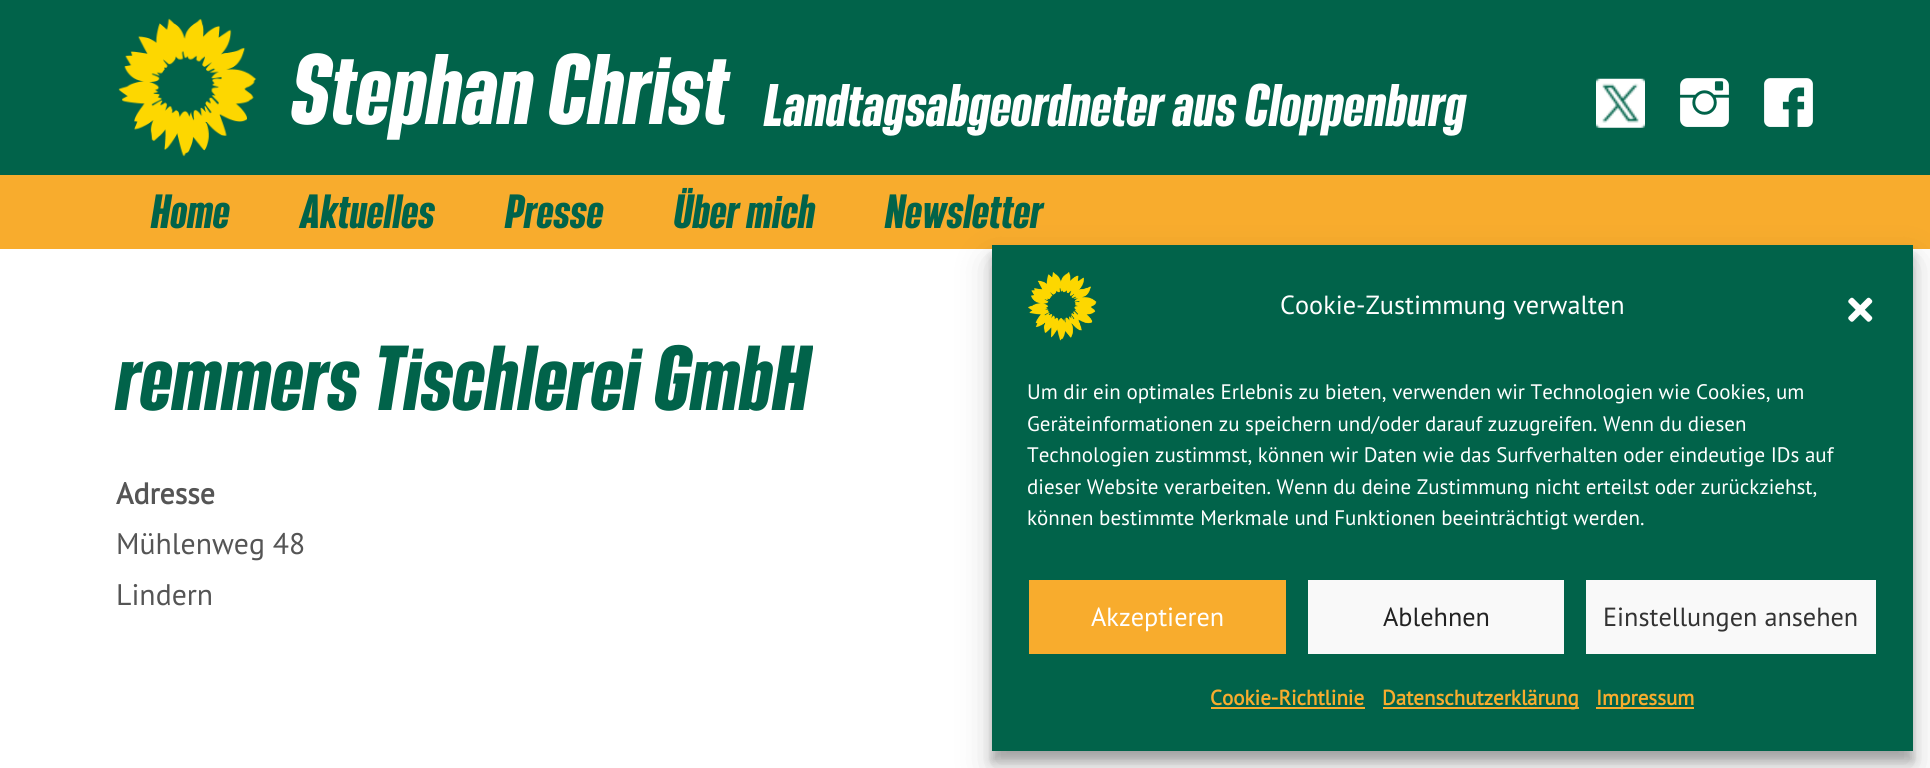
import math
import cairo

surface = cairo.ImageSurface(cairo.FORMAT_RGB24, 1930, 768)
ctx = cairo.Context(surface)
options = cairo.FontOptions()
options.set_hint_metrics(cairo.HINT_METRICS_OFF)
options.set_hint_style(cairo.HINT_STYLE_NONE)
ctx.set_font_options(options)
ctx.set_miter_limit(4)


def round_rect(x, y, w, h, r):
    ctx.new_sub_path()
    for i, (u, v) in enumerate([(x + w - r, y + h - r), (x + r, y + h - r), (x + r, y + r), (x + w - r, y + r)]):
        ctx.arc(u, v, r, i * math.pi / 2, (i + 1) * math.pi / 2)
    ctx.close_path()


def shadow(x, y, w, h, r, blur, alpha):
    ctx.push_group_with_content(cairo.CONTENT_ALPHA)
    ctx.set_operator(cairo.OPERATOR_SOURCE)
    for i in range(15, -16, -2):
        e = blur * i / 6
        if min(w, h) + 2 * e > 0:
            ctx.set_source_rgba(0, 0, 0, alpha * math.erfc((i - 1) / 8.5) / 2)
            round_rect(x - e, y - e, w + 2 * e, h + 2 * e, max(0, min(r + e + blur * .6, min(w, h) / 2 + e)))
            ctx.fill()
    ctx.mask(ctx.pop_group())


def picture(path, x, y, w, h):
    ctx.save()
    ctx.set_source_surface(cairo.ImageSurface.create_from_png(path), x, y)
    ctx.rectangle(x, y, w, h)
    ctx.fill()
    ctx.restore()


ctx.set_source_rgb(1, 1, 1)
ctx.paint()
ctx.set_source_rgb(0.004, 0.388, 0.29)
ctx.rectangle(0, 0, 1930, 175)
ctx.fill()
picture("img1.png", 118, 18, 139, 139)
ctx.select_font_face("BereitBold", cairo.FONT_SLANT_NORMAL, cairo.FONT_WEIGHT_BOLD)
ctx.set_font_size(87.5)
ctx.set_source_rgb(1, 1, 1)
ctx.move_to(291, 124)
ctx.show_text("Stephan Christ")
ctx.set_font_size(52.5)
ctx.move_to(764, 126)
ctx.show_text("Landtagsabgeordneter aus Cloppenburg")
picture("img2.png", 1596, 78, 49, 50)
picture("img3.png", 1680, 78, 49, 49)
picture("img4.png", 1764, 78, 49, 49)
ctx.set_source_rgb(0.969, 0.675, 0.176)
ctx.rectangle(0, 175, 1930, 74)
ctx.fill()
ctx.set_font_size(42)
ctx.set_source_rgb(0.004, 0.388, 0.29)
ctx.move_to(151, 228)
ctx.show_text("Home")
ctx.move_to(300, 228)
ctx.show_text("Aktuelles")
ctx.move_to(505, 228)
ctx.show_text("Presse")
ctx.move_to(674, 228)
ctx.show_text("Über mich")
ctx.move_to(885, 228)
ctx.show_text("Newsletter")
ctx.set_font_size(80.5)
ctx.move_to(116, 410)
ctx.show_text("remmers Tischlerei GmbH")
ctx.select_font_face("PT Sans", cairo.FONT_SLANT_NORMAL, cairo.FONT_WEIGHT_BOLD)
ctx.set_font_size(29.75)
ctx.set_source_rgb(0.333, 0.333, 0.333)
ctx.move_to(116, 504)
ctx.show_text("Adresse")
ctx.select_font_face("PT Sans")
ctx.move_to(116, 554)
ctx.show_text("Mühlenweg 48")
ctx.move_to(116, 605)
ctx.show_text("Lindern")
ctx.set_source_rgb(0, 0, 0)
shadow(992, 256, 921, 505, 0, 5, 0.23)
shadow(992, 263, 921, 505, 0, 17.5, 0.19)
ctx.set_source_rgb(0.004, 0.388, 0.29)
ctx.rectangle(992, 245, 921, 506)
ctx.fill()
picture("img5.png", 1028, 272, 69, 69)
ctx.set_font_size(26.25)
ctx.set_source_rgb(1, 1, 1)
ctx.move_to(1280, 314)
ctx.show_text("Cookie-Zustimmung verwalten")
picture("img6.png", 1848, 297, 25, 25)
ctx.set_font_size(21)
ctx.move_to(1027, 399)
ctx.show_text("Um dir ein optimales Erlebnis zu bieten, verwenden wir Technologien wie Cookies, um")
ctx.move_to(1027, 431)
ctx.show_text("Geräteinformationen zu speichern und/oder darauf zuzugreifen. Wenn du diesen")
ctx.move_to(1027, 462)
ctx.show_text("Technologien zustimmst, können wir Daten wie das Surfverhalten oder eindeutige IDs auf")
ctx.move_to(1027, 494)
ctx.show_text("dieser Website verarbeiten. Wenn du deine Zustimmung nicht erteilst oder zurückziehst,")
ctx.move_to(1027, 525)
ctx.show_text("können bestimmte Merkmale und Funktionen beeinträchtigt werden.")
ctx.set_source_rgb(0.969, 0.675, 0.176)
ctx.rectangle(1029, 580, 257, 74)
ctx.fill()
ctx.set_font_size(26.25)
ctx.set_source_rgb(1, 1, 1)
ctx.move_to(1091, 626)
ctx.show_text("Akzeptieren")
ctx.set_source_rgb(0.976, 0.976, 0.976)
ctx.rectangle(1308, 580, 256, 74)
ctx.fill()
ctx.set_source_rgb(0.133, 0.133, 0.133)
ctx.move_to(1383, 626)
ctx.show_text("Ablehnen")
ctx.set_source_rgb(0.976, 0.976, 0.976)
ctx.rectangle(1586, 580, 290, 74)
ctx.fill()
ctx.set_source_rgb(0.2, 0.2, 0.2)
ctx.move_to(1603, 626)
ctx.show_text("Einstellungen ansehen")
ctx.select_font_face("PT Sans", cairo.FONT_SLANT_NORMAL, cairo.FONT_WEIGHT_BOLD)
ctx.set_font_size(21)
ctx.set_source_rgb(0.969, 0.675, 0.176)
ctx.move_to(1210, 705)
ctx.show_text("Cookie-Richtlinie")
ctx.rectangle(1211, 707, 154, 2)
ctx.fill()
ctx.rectangle(1383, 707, 196, 2)
ctx.fill()
ctx.move_to(1382, 705)
ctx.show_text("Datenschutzerklärung")
ctx.rectangle(1596, 707, 98, 2)
ctx.fill()
ctx.move_to(1596, 705)
ctx.show_text("Impressum")
surface.write_to_png("page.png")
